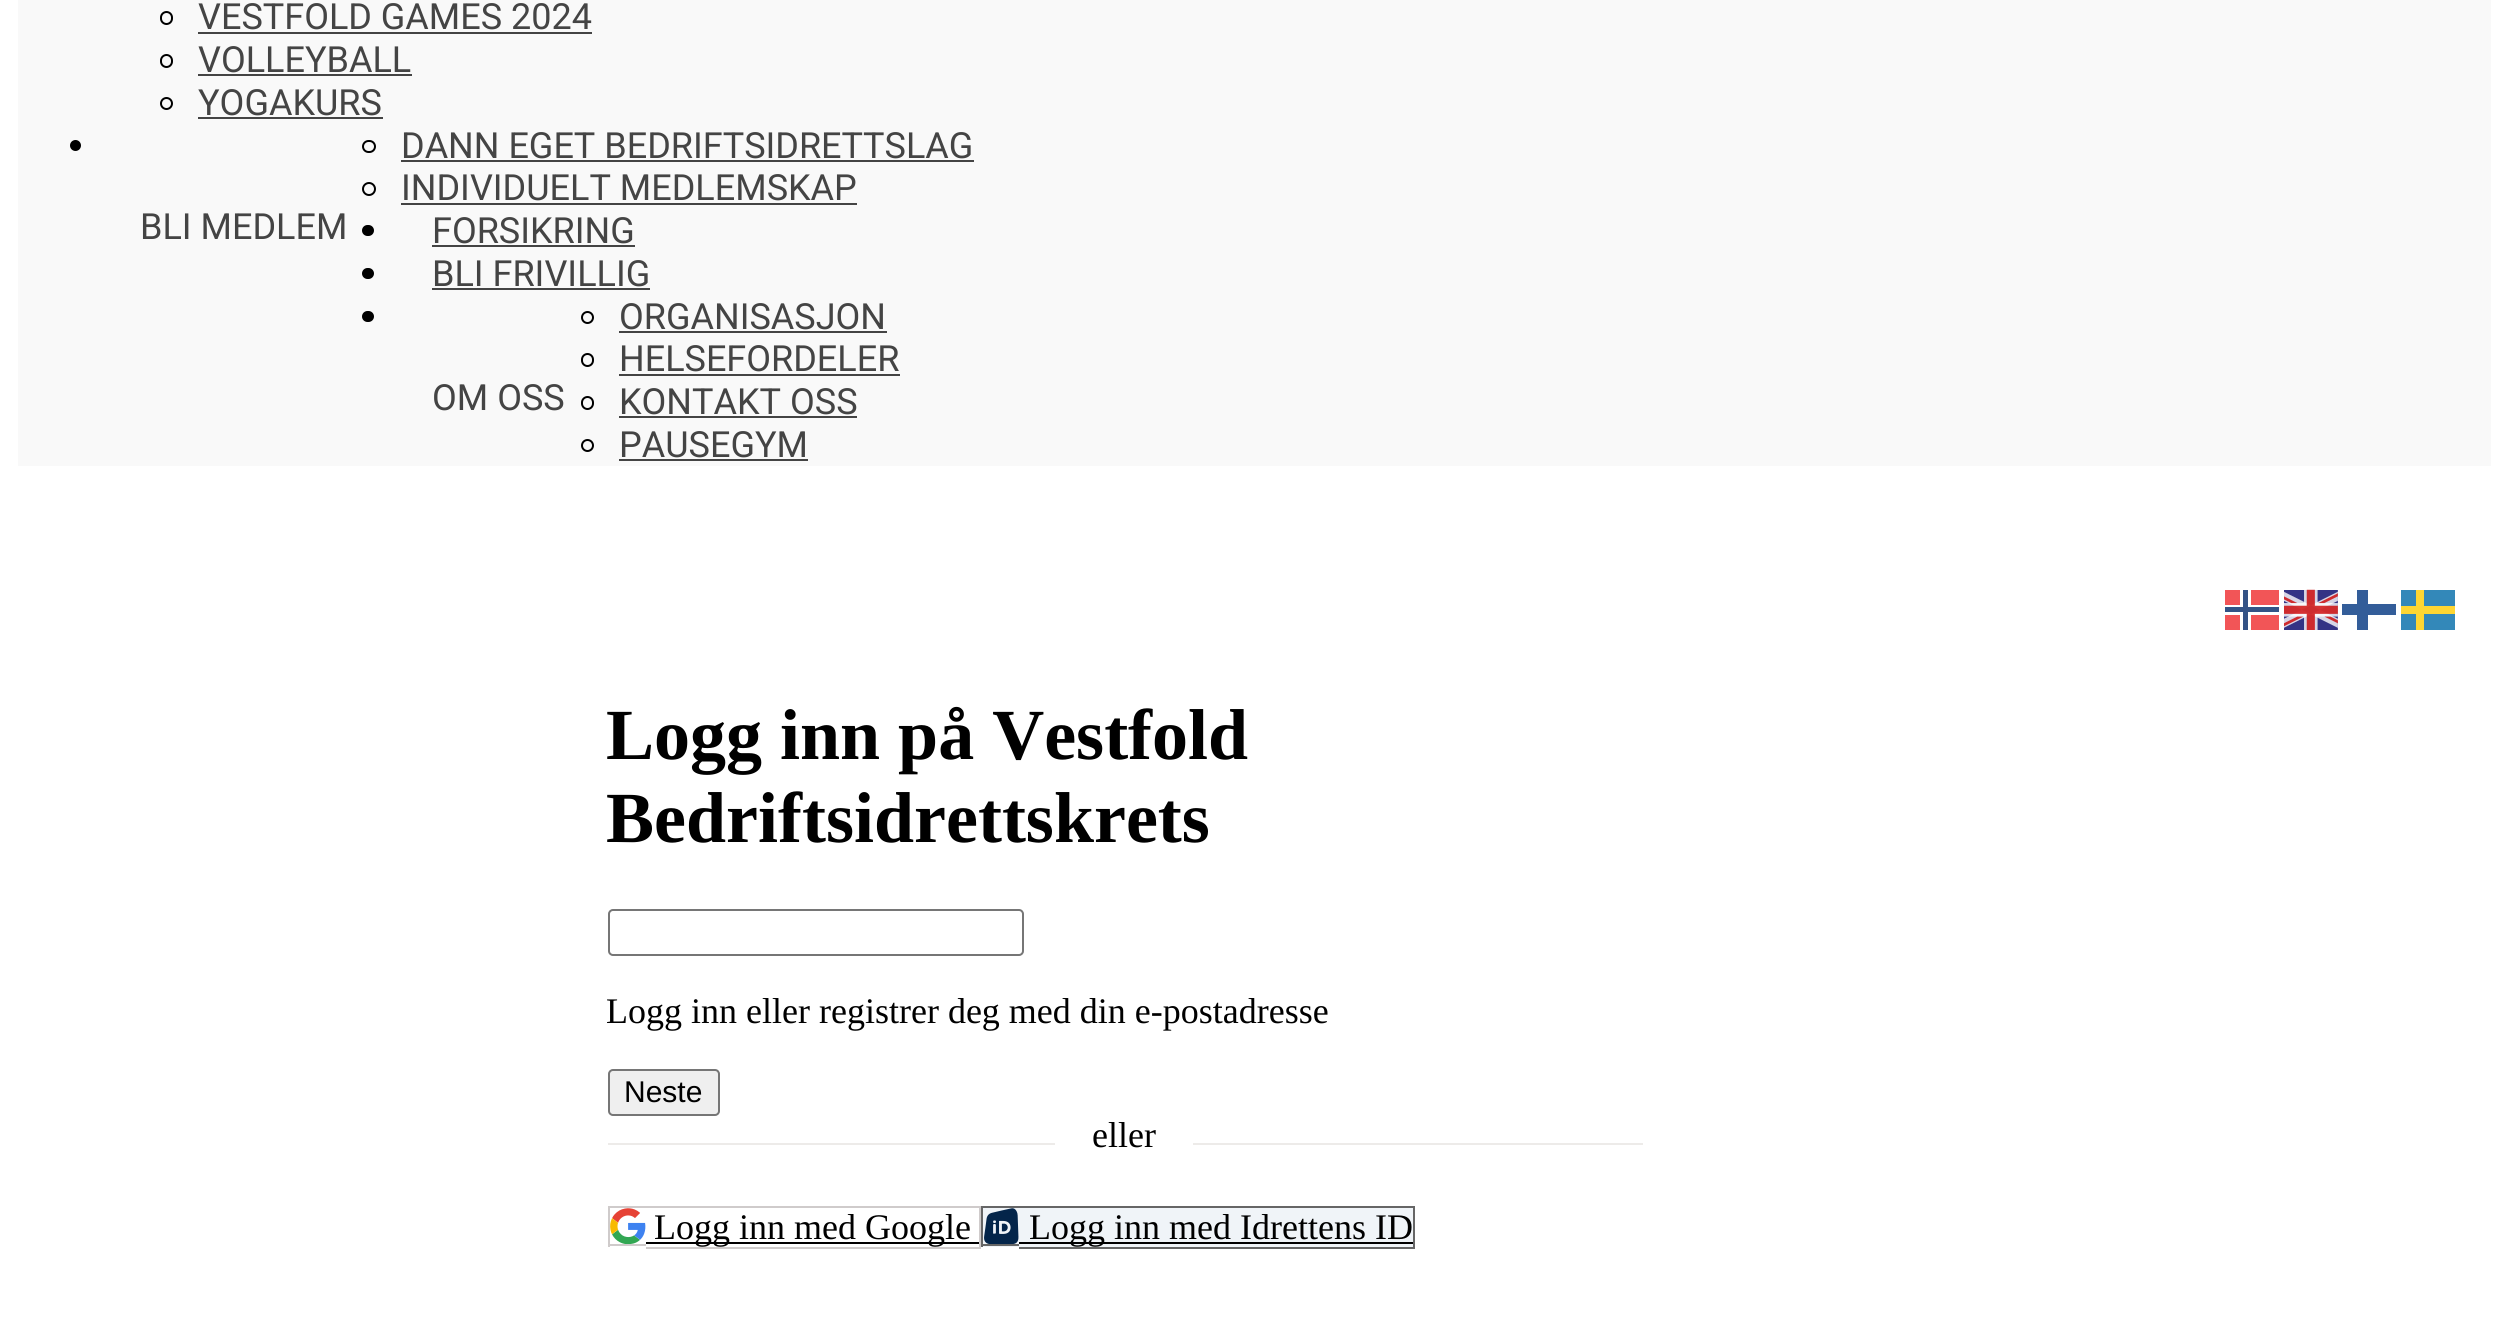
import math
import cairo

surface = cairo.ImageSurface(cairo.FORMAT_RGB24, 2508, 1339)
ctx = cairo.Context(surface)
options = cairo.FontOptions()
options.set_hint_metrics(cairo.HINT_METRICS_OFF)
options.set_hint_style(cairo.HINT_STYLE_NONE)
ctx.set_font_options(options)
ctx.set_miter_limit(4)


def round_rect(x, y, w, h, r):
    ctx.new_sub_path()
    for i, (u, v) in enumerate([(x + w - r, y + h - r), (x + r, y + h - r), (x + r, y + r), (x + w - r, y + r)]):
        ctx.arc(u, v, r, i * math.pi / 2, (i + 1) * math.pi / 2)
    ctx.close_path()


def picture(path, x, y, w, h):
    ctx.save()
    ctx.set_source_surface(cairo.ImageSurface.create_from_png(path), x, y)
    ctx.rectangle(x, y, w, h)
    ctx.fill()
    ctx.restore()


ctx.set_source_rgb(1, 1, 1)
ctx.paint()
ctx.set_source_rgb(0.976, 0.976, 0.976)
ctx.rectangle(18, 0, 2473, 466)
ctx.fill()
round_rect(161, 12, 11, 12, 5.5)
ctx.set_source_rgb(0, 0, 0)
ctx.stroke()
ctx.select_font_face("Roboto")
ctx.set_font_size(36)
ctx.set_source_rgb(0.267, 0.267, 0.267)
ctx.move_to(198, 29)
ctx.show_text("VESTFOLD GAMES 2024")
ctx.rectangle(198, 32, 394, 2)
ctx.fill()
round_rect(161, 55, 11, 12, 5.5)
ctx.set_source_rgb(0, 0, 0)
ctx.stroke()
ctx.set_source_rgb(0.267, 0.267, 0.267)
ctx.move_to(198, 72)
ctx.show_text("VOLLEYBALL")
ctx.rectangle(198, 74, 214, 2)
ctx.fill()
ctx.arc(166.5, 103.5, 5.5, 0, 2 * math.pi)
ctx.set_source_rgb(0, 0, 0)
ctx.stroke()
ctx.set_source_rgb(0.267, 0.267, 0.267)
ctx.move_to(198, 115)
ctx.show_text("YOGAKURS")
ctx.rectangle(198, 117, 185, 2)
ctx.fill()
ctx.set_source_rgb(0, 0, 0)
ctx.arc(75.5, 145.5, 5.5, 0, 2 * math.pi)
ctx.fill()
round_rect(363, 141, 12, 11, 5.5)
ctx.stroke()
ctx.set_source_rgb(0.267, 0.267, 0.267)
ctx.move_to(401, 158)
ctx.show_text("DANN EGET BEDRIFTSIDRETTSLAG")
ctx.rectangle(401, 160, 573, 2)
ctx.fill()
ctx.arc(369, 189, 6, 0, 2 * math.pi)
ctx.set_source_rgb(0, 0, 0)
ctx.stroke()
ctx.set_source_rgb(0.267, 0.267, 0.267)
ctx.move_to(401, 200)
ctx.show_text("INDIVIDUELT MEDLEMSKAP")
ctx.rectangle(401, 203, 456, 2)
ctx.fill()
ctx.move_to(140, 239)
ctx.show_text("BLI MEDLEM")
ctx.set_source_rgb(0, 0, 0)
round_rect(362, 225, 12, 11, 5.5)
ctx.fill()
ctx.set_source_rgb(0.267, 0.267, 0.267)
ctx.move_to(432, 243)
ctx.show_text("FORSIKRING")
ctx.rectangle(432, 245, 203, 2)
ctx.fill()
ctx.set_source_rgb(0, 0, 0)
round_rect(362, 268, 12, 11, 5.5)
ctx.fill()
ctx.set_source_rgb(0.267, 0.267, 0.267)
ctx.move_to(432, 286)
ctx.show_text("BLI FRIVILLIG")
ctx.rectangle(432, 288, 218, 2)
ctx.fill()
ctx.set_source_rgb(0, 0, 0)
round_rect(362, 311, 12, 11, 5.5)
ctx.fill()
ctx.arc(587.5, 317.5, 5.5, 0, 2 * math.pi)
ctx.stroke()
ctx.set_source_rgb(0.267, 0.267, 0.267)
ctx.move_to(619, 329)
ctx.show_text("ORGANISASJON")
ctx.rectangle(619, 331, 268, 2)
ctx.fill()
round_rect(582, 354, 11, 12, 5.5)
ctx.set_source_rgb(0, 0, 0)
ctx.stroke()
ctx.set_source_rgb(0.267, 0.267, 0.267)
ctx.move_to(619, 371)
ctx.show_text("HELSEFORDELER")
ctx.rectangle(619, 374, 281, 2)
ctx.fill()
round_rect(582, 397, 11, 12, 5.5)
ctx.set_source_rgb(0, 0, 0)
ctx.stroke()
ctx.set_source_rgb(0.267, 0.267, 0.267)
ctx.move_to(619, 414)
ctx.show_text("KONTAKT OSS")
ctx.rectangle(619, 416, 238, 2)
ctx.fill()
ctx.arc(587.5, 445.5, 5.5, 0, 2 * math.pi)
ctx.set_source_rgb(0, 0, 0)
ctx.stroke()
ctx.set_source_rgb(0.267, 0.267, 0.267)
ctx.move_to(619, 457)
ctx.show_text("PAUSEGYM")
ctx.rectangle(619, 459, 189, 2)
ctx.fill()
ctx.move_to(432, 410)
ctx.show_text("OM OSS")
ctx.set_source_rgb(0.949, 0.333, 0.341)
ctx.rectangle(2225, 590, 54, 40)
ctx.fill()
picture("img1.png", 2284, 589, 54, 41)
ctx.set_source_rgb(1, 1, 1)
ctx.rectangle(2240, 590, 11, 40)
ctx.fill()
ctx.rectangle(2225, 605, 54, 10)
ctx.fill()
ctx.set_source_rgb(0.2, 0.325, 0.525)
ctx.rectangle(2243, 590, 5, 40)
ctx.fill()
ctx.set_source_rgb(0.2, 0.365, 0.6)
ctx.rectangle(2342, 604, 54, 11)
ctx.fill()
ctx.rectangle(2357, 590, 11, 40)
ctx.fill()
ctx.set_source_rgb(0.2, 0.533, 0.725)
ctx.set_fill_rule(cairo.FILL_RULE_EVEN_ODD)
ctx.new_path()
ctx.move_to(2401, 606)
ctx.line_to(2401, 590)
ctx.line_to(2416, 590)
ctx.line_to(2416, 606)
ctx.close_path()
ctx.move_to(2401, 630)
ctx.line_to(2416, 630)
ctx.line_to(2416, 614)
ctx.line_to(2401, 614)
ctx.close_path()
ctx.fill()
ctx.set_source_rgb(0.996, 0.839, 0.2)
ctx.rectangle(2416, 590, 8, 40)
ctx.fill()
ctx.rectangle(2424, 606, 31, 8)
ctx.fill()
ctx.set_source_rgb(0.2, 0.533, 0.725)
ctx.new_path()
ctx.move_to(2424, 614)
ctx.line_to(2424, 630)
ctx.line_to(2455, 630)
ctx.line_to(2455, 614)
ctx.close_path()
ctx.move_to(2424, 590)
ctx.line_to(2455, 590)
ctx.line_to(2455, 606)
ctx.line_to(2424, 606)
ctx.close_path()
ctx.fill()
ctx.set_source_rgb(0.996, 0.839, 0.2)
ctx.rectangle(2401, 606, 15, 8)
ctx.fill()
ctx.set_source_rgb(0.2, 0.325, 0.525)
ctx.rectangle(2225, 607, 54, 5)
ctx.fill()
ctx.select_font_face("Liberation Serif", cairo.FONT_SLANT_NORMAL, cairo.FONT_WEIGHT_BOLD)
ctx.set_font_size(72)
ctx.set_source_rgb(0, 0, 0)
ctx.move_to(606, 759)
ctx.show_text("Logg inn på Vestfold")
ctx.move_to(606, 842)
ctx.show_text("Bedriftsidrettskrets")
round_rect(609, 910, 414, 45, 4)
ctx.set_source_rgb(0.463, 0.463, 0.463)
ctx.stroke()
ctx.select_font_face("Liberation Serif")
ctx.set_font_size(36)
ctx.set_source_rgb(0, 0, 0)
ctx.move_to(606, 1023)
ctx.show_text("Logg inn eller registrer deg med din e-postadresse")
ctx.set_source_rgb(0.937, 0.937, 0.937)
round_rect(609, 1070, 110, 45, 4)
ctx.fill_preserve()
ctx.set_source_rgb(0.463, 0.463, 0.463)
ctx.stroke()
ctx.select_font_face("Liberation Sans")
ctx.set_font_size(30)
ctx.set_source_rgb(0, 0, 0)
ctx.move_to(624, 1102)
ctx.show_text("Neste")
ctx.set_source_rgb(0.929, 0.918, 0.914)
ctx.rectangle(608, 1143, 447, 2)
ctx.fill()
ctx.select_font_face("Liberation Serif")
ctx.set_font_size(36)
ctx.set_source_rgb(0, 0, 0)
ctx.move_to(1092, 1147)
ctx.show_text("eller")
ctx.set_source_rgb(0.929, 0.918, 0.914)
ctx.rectangle(1193, 1143, 450, 2)
ctx.fill()
picture("img2.png", 610, 1208, 36, 36)
ctx.set_source_rgb(0, 0, 0)
ctx.rectangle(646, 1242, 333, 2)
ctx.fill()
ctx.move_to(654, 1239)
ctx.show_text("Logg inn med Google")
ctx.set_source_rgb(0.812, 0.796, 0.796)
ctx.rectangle(608, 1206, 373, 2)
ctx.fill()
ctx.rectangle(608, 1244, 38, 2)
ctx.fill()
ctx.rectangle(608, 1206, 2, 41)
ctx.fill()
ctx.rectangle(979, 1206, 2, 43)
ctx.fill()
ctx.rectangle(646, 1247, 335, 2)
ctx.fill()
ctx.set_source_rgb(0.941, 0.957, 0.969)
ctx.rectangle(983, 1208, 430, 39)
ctx.fill()
picture("img3.png", 984, 1208, 35, 36)
ctx.set_source_rgb(0, 0, 0)
ctx.rectangle(1019, 1242, 394, 2)
ctx.fill()
ctx.move_to(1029, 1239)
ctx.show_text("Logg inn med Idrettens ID")
ctx.set_source_rgb(0.4, 0.4, 0.4)
ctx.rectangle(981, 1206, 434, 2)
ctx.fill()
ctx.rectangle(981, 1244, 38, 2)
ctx.fill()
ctx.rectangle(981, 1206, 2, 41)
ctx.fill()
ctx.rectangle(1413, 1206, 2, 43)
ctx.fill()
ctx.rectangle(1019, 1247, 396, 2)
ctx.fill()
surface.write_to_png("page.png")
